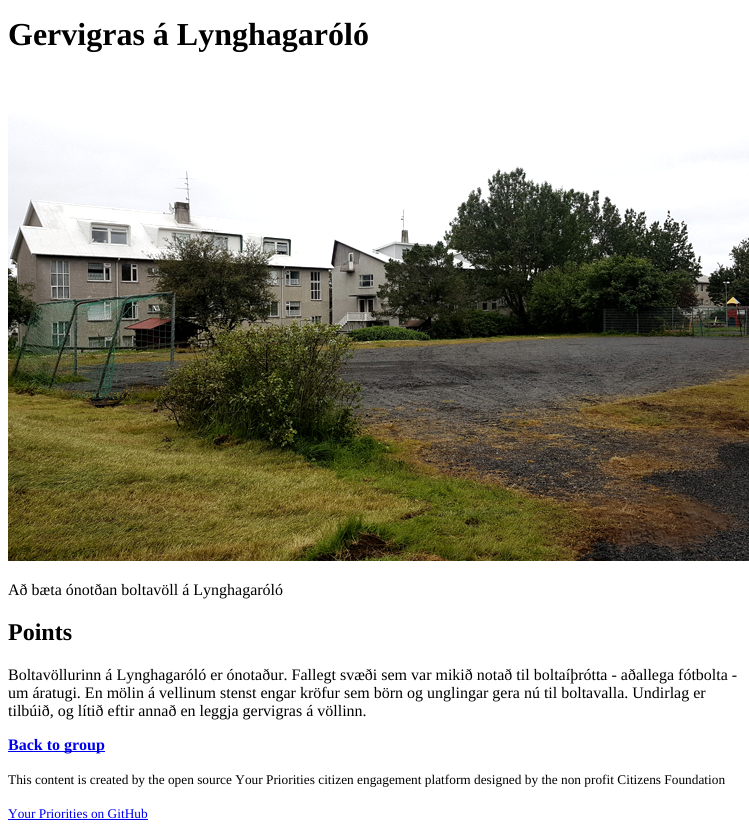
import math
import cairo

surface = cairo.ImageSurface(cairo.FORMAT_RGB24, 749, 827)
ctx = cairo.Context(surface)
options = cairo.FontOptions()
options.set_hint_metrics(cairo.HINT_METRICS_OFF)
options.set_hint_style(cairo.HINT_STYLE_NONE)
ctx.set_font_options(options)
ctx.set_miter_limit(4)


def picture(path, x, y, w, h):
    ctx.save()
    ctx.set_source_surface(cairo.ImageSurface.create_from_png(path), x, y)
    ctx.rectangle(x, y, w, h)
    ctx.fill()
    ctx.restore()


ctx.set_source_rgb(1, 1, 1)
ctx.paint()
ctx.select_font_face("Liberation Serif", cairo.FONT_SLANT_NORMAL, cairo.FONT_WEIGHT_BOLD)
ctx.set_font_size(32)
ctx.set_source_rgb(0, 0, 0)
ctx.move_to(8, 45)
ctx.show_text("Gervigras á Lynghagaróló")
picture("img1.png", 8, 114, 741, 447)
ctx.select_font_face("Liberation Serif")
ctx.set_font_size(16)
ctx.move_to(8, 595)
ctx.show_text("Að bæta ónotðan boltavöll á Lynghagaróló")
ctx.select_font_face("Liberation Serif", cairo.FONT_SLANT_NORMAL, cairo.FONT_WEIGHT_BOLD)
ctx.set_font_size(24)
ctx.move_to(8, 640)
ctx.show_text("Points")
ctx.select_font_face("Liberation Serif")
ctx.set_font_size(16)
ctx.move_to(8, 680)
ctx.show_text("Boltavöllurinn á Lynghagaróló er ónotaður. Fallegt svæði sem var mikið notað til boltaíþrótta - aðallega fótbolta -")
ctx.move_to(8, 698)
ctx.show_text("um áratugi. En mölin á vellinum stenst engar kröfur sem börn og unglingar gera nú til boltavalla. Undirlag er")
ctx.move_to(8, 716)
ctx.show_text("tilbúið, og lítið eftir annað en leggja gervigras á völlinn.")
ctx.set_source_rgb(0, 0, 0.933)
ctx.rectangle(8, 751, 97, 1)
ctx.fill()
ctx.select_font_face("Liberation Serif", cairo.FONT_SLANT_NORMAL, cairo.FONT_WEIGHT_BOLD)
ctx.move_to(8, 750)
ctx.show_text("Back to group")
ctx.select_font_face("Liberation Serif")
ctx.set_font_size(13.33)
ctx.set_source_rgb(0, 0, 0)
ctx.move_to(8, 784)
ctx.show_text("This content is created by the open source Your Priorities citizen engagement platform designed by the non profit Citizens Foundation")
ctx.set_source_rgb(0, 0, 0.933)
ctx.move_to(8, 818)
ctx.show_text("Your Priorities on GitHub")
ctx.rectangle(8, 819, 140, 1)
ctx.fill()
surface.write_to_png("page.png")
